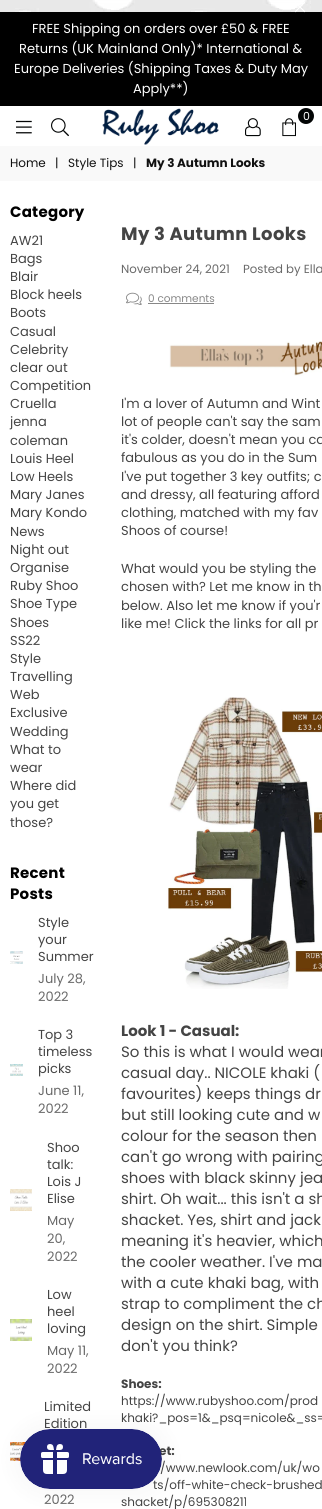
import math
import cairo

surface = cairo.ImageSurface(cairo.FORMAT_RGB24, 322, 1509)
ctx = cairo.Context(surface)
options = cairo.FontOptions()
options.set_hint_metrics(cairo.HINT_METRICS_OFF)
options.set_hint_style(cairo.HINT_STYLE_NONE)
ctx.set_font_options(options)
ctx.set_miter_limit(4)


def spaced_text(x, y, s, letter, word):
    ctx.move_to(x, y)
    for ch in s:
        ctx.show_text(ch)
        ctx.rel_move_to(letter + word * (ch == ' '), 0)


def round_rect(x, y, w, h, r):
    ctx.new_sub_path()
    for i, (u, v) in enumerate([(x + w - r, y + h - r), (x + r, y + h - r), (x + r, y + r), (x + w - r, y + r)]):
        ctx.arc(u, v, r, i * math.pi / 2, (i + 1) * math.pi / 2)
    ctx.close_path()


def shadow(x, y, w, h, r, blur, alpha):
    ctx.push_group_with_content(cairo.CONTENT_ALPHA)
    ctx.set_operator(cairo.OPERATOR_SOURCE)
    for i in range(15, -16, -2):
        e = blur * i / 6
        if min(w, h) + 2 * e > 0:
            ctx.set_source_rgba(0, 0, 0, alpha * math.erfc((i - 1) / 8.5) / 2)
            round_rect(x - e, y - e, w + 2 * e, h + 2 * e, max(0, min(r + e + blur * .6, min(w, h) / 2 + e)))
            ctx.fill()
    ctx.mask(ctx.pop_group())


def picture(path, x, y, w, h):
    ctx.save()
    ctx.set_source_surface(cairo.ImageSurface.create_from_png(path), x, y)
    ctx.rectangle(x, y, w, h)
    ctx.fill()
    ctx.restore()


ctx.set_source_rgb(1, 1, 1)
ctx.paint()
picture("img1.png", 0, 0, 322, 12)
ctx.set_source_rgb(0, 0, 0)
ctx.rectangle(0, 12, 322, 94)
ctx.fill()
picture("img2.png", 295, 2, 10, 11)
ctx.select_font_face("Poppins")
ctx.set_font_size(13)
ctx.set_source_rgb(1, 1, 1)
ctx.move_to(32, 33)
ctx.show_text("FREE Shipping on orders over £50 & FREE")
ctx.move_to(19, 53)
ctx.show_text("Returns (UK Mainland Only)* International &")
ctx.move_to(14, 73)
ctx.show_text("Europe Deliveries (Shipping Taxes & Duty May")
ctx.move_to(133, 93)
ctx.show_text("Apply**)")
picture("img3.png", 102, 108, 117, 37)
ctx.set_source_rgb(0.012, 0.02, 0.02)
ctx.arc(306, 116, 8, 0, 2 * math.pi)
ctx.fill()
ctx.set_font_size(11)
ctx.set_source_rgb(1, 1, 1)
ctx.move_to(303, 120)
ctx.show_text("0")
picture("img4.png", 282, 118, 14, 19)
picture("img5.png", 245, 118, 16, 19)
picture("img6.png", 16, 120, 16, 14)
picture("img7.png", 51, 118, 18, 19)
ctx.set_source_rgb(0.976, 0.976, 0.976)
ctx.rectangle(0, 146, 322, 35)
ctx.fill()
ctx.set_font_size(12)
ctx.set_source_rgb(0.067, 0.067, 0.067)
ctx.move_to(10, 167)
ctx.show_text("Home")
ctx.move_to(55, 167)
ctx.show_text("|")
ctx.move_to(68, 167)
ctx.show_text("Style Tips")
ctx.move_to(133, 167)
ctx.show_text("|")
ctx.select_font_face("Poppins", cairo.FONT_SLANT_NORMAL, cairo.FONT_WEIGHT_BOLD)
ctx.move_to(146, 167)
ctx.show_text("My 3 Autumn Looks")
ctx.set_font_size(15)
ctx.set_source_rgb(0, 0, 0)
spaced_text(10, 217, "Category", 0.25, 0)
ctx.select_font_face("Poppins")
ctx.set_font_size(13)
ctx.set_source_rgb(0.267, 0.267, 0.267)
ctx.move_to(10, 245)
ctx.show_text("AW21")
ctx.move_to(10, 263)
ctx.show_text("Bags")
ctx.move_to(10, 281)
ctx.show_text("Blair")
ctx.move_to(10, 299)
ctx.show_text("Block heels")
ctx.move_to(10, 317)
ctx.show_text("Boots")
ctx.move_to(10, 336)
ctx.show_text("Casual")
ctx.move_to(10, 354)
ctx.show_text("Celebrity")
ctx.move_to(10, 372)
ctx.show_text("clear out")
ctx.move_to(10, 390)
ctx.show_text("Competition")
ctx.move_to(10, 408)
ctx.show_text("Cruella")
ctx.move_to(10, 426)
ctx.show_text("jenna")
ctx.move_to(10, 445)
ctx.show_text("coleman")
ctx.move_to(10, 463)
ctx.show_text("Louis Heel")
ctx.move_to(10, 481)
ctx.show_text("Low Heels")
ctx.move_to(10, 499)
ctx.show_text("Mary Janes")
ctx.move_to(10, 517)
ctx.show_text("Mary Kondo")
ctx.move_to(10, 536)
ctx.show_text("News")
ctx.move_to(10, 554)
ctx.show_text("Night out")
ctx.move_to(10, 572)
ctx.show_text("Organise")
ctx.move_to(10, 590)
ctx.show_text("Ruby Shoo")
ctx.move_to(10, 608)
ctx.show_text("Shoe Type")
ctx.move_to(10, 627)
ctx.show_text("Shoes")
ctx.move_to(10, 645)
ctx.show_text("SS22")
ctx.move_to(10, 663)
ctx.show_text("Style")
ctx.move_to(10, 681)
ctx.show_text("Travelling")
ctx.move_to(10, 699)
ctx.show_text("Web")
ctx.move_to(10, 717)
ctx.show_text("Exclusive")
ctx.move_to(10, 736)
ctx.show_text("Wedding")
ctx.move_to(10, 754)
ctx.show_text("What to")
ctx.move_to(10, 772)
ctx.show_text("wear")
ctx.move_to(10, 790)
ctx.show_text("Where did")
ctx.move_to(10, 808)
ctx.show_text("you get")
ctx.move_to(10, 827)
ctx.show_text("those?")
ctx.select_font_face("Poppins", cairo.FONT_SLANT_NORMAL, cairo.FONT_WEIGHT_BOLD)
ctx.set_font_size(15)
ctx.set_source_rgb(0, 0, 0)
spaced_text(10, 878, "Recent", 0.25, 0)
spaced_text(10, 899, "Posts", 0.25, 0)
picture("img8.png", 10, 951, 13, 13)
ctx.select_font_face("Poppins")
ctx.set_font_size(13)
ctx.set_source_rgb(0.267, 0.267, 0.267)
ctx.move_to(38, 927)
ctx.show_text("Style")
ctx.move_to(38, 944)
ctx.show_text("your")
ctx.move_to(38, 961)
ctx.show_text("Summer")
ctx.set_source_rgb(0.412, 0.412, 0.412)
ctx.move_to(38, 983)
ctx.show_text("July 28,")
ctx.move_to(38, 1001)
ctx.show_text("2022")
picture("img9.png", 10, 1064, 13, 12)
ctx.set_source_rgb(0.267, 0.267, 0.267)
ctx.move_to(38, 1039)
ctx.show_text("Top 3")
ctx.move_to(38, 1056)
ctx.show_text("timeless")
ctx.move_to(38, 1073)
ctx.show_text("picks")
ctx.set_source_rgb(0.412, 0.412, 0.412)
ctx.move_to(38, 1095)
ctx.show_text("June 11,")
ctx.move_to(38, 1113)
ctx.show_text("2022")
picture("img10.png", 10, 1189, 22, 22)
ctx.set_source_rgb(0.267, 0.267, 0.267)
ctx.move_to(47, 1152)
ctx.show_text("Shoo")
ctx.move_to(47, 1169)
ctx.show_text("talk:")
ctx.move_to(47, 1186)
ctx.show_text("Lois J")
ctx.move_to(47, 1203)
ctx.show_text("Elise")
ctx.set_source_rgb(0.412, 0.412, 0.412)
ctx.move_to(47, 1225)
ctx.show_text("May")
ctx.move_to(47, 1243)
ctx.show_text("20,")
ctx.move_to(47, 1261)
ctx.show_text("2022")
picture("img11.png", 10, 1319, 22, 22)
ctx.set_source_rgb(0.267, 0.267, 0.267)
ctx.move_to(47, 1299)
ctx.show_text("Low")
ctx.move_to(47, 1316)
ctx.show_text("heel")
ctx.move_to(47, 1333)
ctx.show_text("loving")
ctx.set_source_rgb(0.412, 0.412, 0.412)
ctx.move_to(47, 1355)
ctx.show_text("May 11,")
ctx.move_to(47, 1373)
ctx.show_text("2022")
picture("img12.png", 10, 1442, 16, 19)
ctx.set_source_rgb(0.267, 0.267, 0.267)
ctx.move_to(44, 1411)
ctx.show_text("Limited")
ctx.move_to(44, 1428)
ctx.show_text("Edition")
ctx.set_source_rgb(0.412, 0.412, 0.412)
ctx.move_to(44, 1504)
ctx.show_text("2022")
ctx.select_font_face("Poppins", cairo.FONT_SLANT_NORMAL, cairo.FONT_WEIGHT_BOLD)
ctx.set_font_size(18)
ctx.set_source_rgb(0.267, 0.267, 0.267)
spaced_text(121, 240, "My 3 Autumn Looks", 0.4, 0)
ctx.select_font_face("Poppins")
ctx.set_font_size(11.75)
ctx.set_source_rgb(0.412, 0.412, 0.412)
ctx.move_to(121, 273)
ctx.show_text("November 24, 2021")
ctx.move_to(243, 273)
ctx.show_text("Posted by Ella")
picture("img13.png", 126, 292, 16, 13)
ctx.set_font_size(10.5)
ctx.set_source_rgb(0.529, 0.529, 0.529)
ctx.move_to(148, 302)
ctx.show_text("0 comments")
ctx.rectangle(148, 303, 66, 1)
ctx.fill()
picture("img14.png", 169, 341, 153, 35)
ctx.set_font_size(13)
ctx.set_source_rgb(0.267, 0.267, 0.267)
ctx.move_to(121, 408)
ctx.show_text("I'm a lover of Autumn and Wint")
ctx.move_to(121, 426)
ctx.show_text("lot of people can't say the sam")
ctx.move_to(121, 444)
ctx.show_text("it's colder, doesn't mean you ca")
ctx.move_to(121, 462)
ctx.show_text("fabulous as you do in the Sum")
ctx.move_to(121, 481)
ctx.show_text("I've put together 3 key outfits; c")
ctx.move_to(121, 499)
ctx.show_text("and dressy, all featuring afford")
ctx.move_to(121, 517)
ctx.show_text("clothing, matched with my fav")
ctx.move_to(121, 535)
ctx.show_text("Shoos of course!")
ctx.move_to(121, 573)
ctx.show_text("What would you be styling the")
ctx.move_to(121, 591)
ctx.show_text("chosen with? Let me know in th")
ctx.move_to(121, 610)
ctx.show_text("below. Also let me know if you'r")
ctx.move_to(121, 628)
ctx.show_text("like me! Click the links for all pr")
picture("img15.png", 166, 697, 156, 292)
ctx.select_font_face("Poppins", cairo.FONT_SLANT_NORMAL, cairo.FONT_WEIGHT_BOLD)
ctx.set_font_size(15)
ctx.move_to(121, 1036)
ctx.show_text("Look 1 - Casual:")
ctx.select_font_face("Poppins")
ctx.move_to(121, 1057)
ctx.show_text("So this is what I would wear")
ctx.move_to(121, 1078)
ctx.show_text("casual day.. NICOLE khaki (")
ctx.move_to(121, 1099)
ctx.show_text("favourites) keeps things dr")
ctx.move_to(121, 1120)
ctx.show_text("but still looking cute and w")
ctx.move_to(121, 1141)
ctx.show_text("colour for the season then")
ctx.move_to(121, 1162)
ctx.show_text("can't go wrong with pairing")
ctx.move_to(121, 1183)
ctx.show_text("shoes with black skinny jea")
ctx.move_to(121, 1204)
ctx.show_text("shirt. Oh wait... this isn't a sh")
ctx.move_to(121, 1225)
ctx.show_text("shacket. Yes, shirt and jack")
ctx.move_to(121, 1246)
ctx.show_text("meaning it's heavier, which")
ctx.move_to(121, 1267)
ctx.show_text("the cooler weather. I've ma")
ctx.move_to(121, 1288)
ctx.show_text("with a cute khaki bag, with")
ctx.move_to(121, 1309)
ctx.show_text("strap to compliment the ch")
ctx.move_to(121, 1330)
ctx.show_text("design on the shirt. Simple")
ctx.move_to(121, 1351)
ctx.show_text("don't you think?")
ctx.select_font_face("Poppins", cairo.FONT_SLANT_NORMAL, cairo.FONT_WEIGHT_BOLD)
ctx.set_font_size(12)
ctx.move_to(121, 1388)
ctx.show_text("Shoes:")
ctx.select_font_face("Poppins")
ctx.move_to(121, 1405)
ctx.show_text("https://www.rubyshoo.com/prod")
ctx.move_to(121, 1422)
ctx.show_text("khaki?_pos=1&_psq=nicole&_ss=")
ctx.select_font_face("Poppins", cairo.FONT_SLANT_NORMAL, cairo.FONT_WEIGHT_BOLD)
ctx.move_to(159, 1455)
ctx.show_text("et:")
ctx.select_font_face("Poppins")
ctx.move_to(160, 1472)
ctx.show_text("/www.newlook.com/uk/wo")
ctx.move_to(153, 1489)
ctx.show_text("ts/off-white-check-brushed")
ctx.move_to(121, 1506)
ctx.show_text("shacket/p/695308211")
ctx.set_source_rgb(0, 0, 0)
shadow(20, 1429, 142, 60, 30, 12.5, 0.05)
picture("img16.png", 20, 1429, 142, 60)
surface.write_to_png("page.png")
